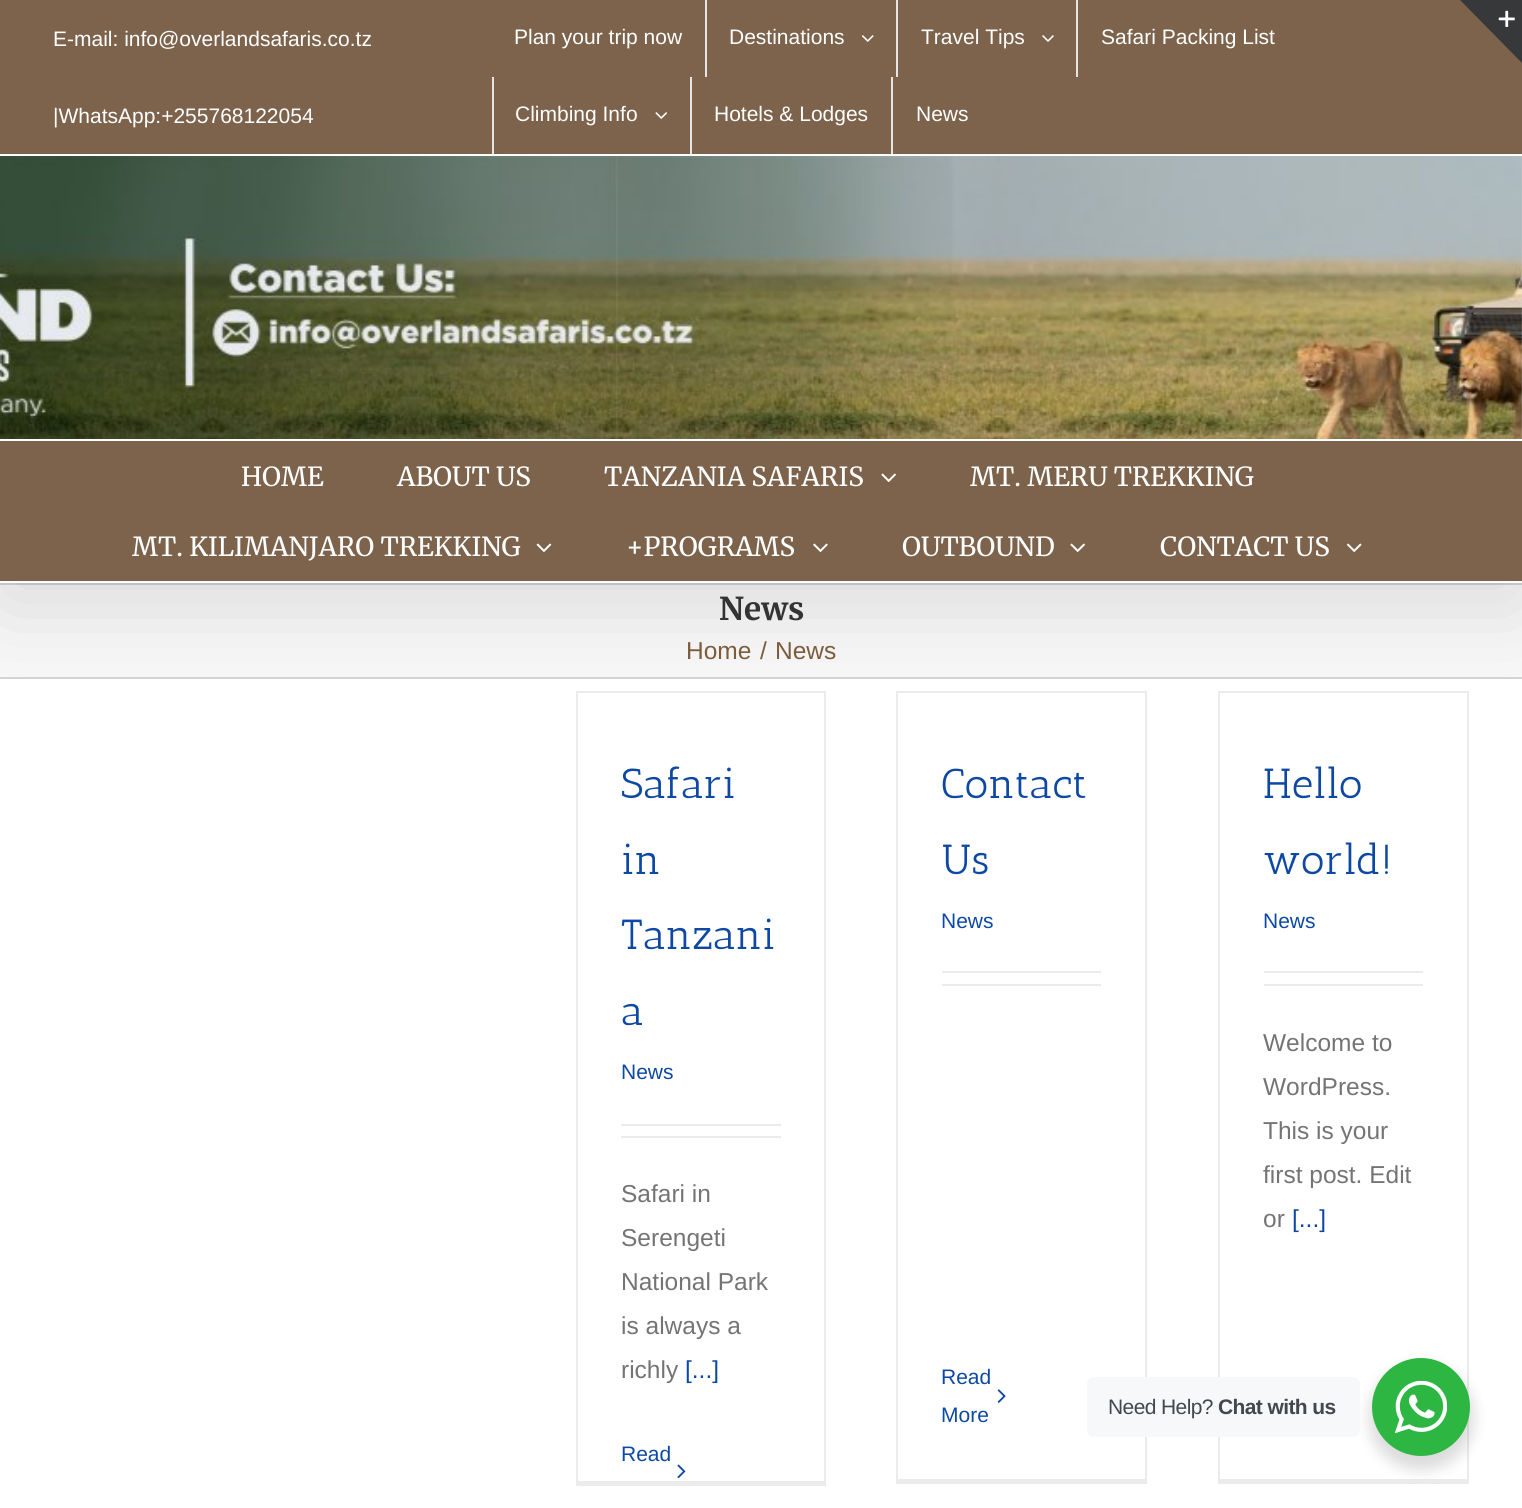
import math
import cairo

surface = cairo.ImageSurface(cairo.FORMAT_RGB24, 1522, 1508)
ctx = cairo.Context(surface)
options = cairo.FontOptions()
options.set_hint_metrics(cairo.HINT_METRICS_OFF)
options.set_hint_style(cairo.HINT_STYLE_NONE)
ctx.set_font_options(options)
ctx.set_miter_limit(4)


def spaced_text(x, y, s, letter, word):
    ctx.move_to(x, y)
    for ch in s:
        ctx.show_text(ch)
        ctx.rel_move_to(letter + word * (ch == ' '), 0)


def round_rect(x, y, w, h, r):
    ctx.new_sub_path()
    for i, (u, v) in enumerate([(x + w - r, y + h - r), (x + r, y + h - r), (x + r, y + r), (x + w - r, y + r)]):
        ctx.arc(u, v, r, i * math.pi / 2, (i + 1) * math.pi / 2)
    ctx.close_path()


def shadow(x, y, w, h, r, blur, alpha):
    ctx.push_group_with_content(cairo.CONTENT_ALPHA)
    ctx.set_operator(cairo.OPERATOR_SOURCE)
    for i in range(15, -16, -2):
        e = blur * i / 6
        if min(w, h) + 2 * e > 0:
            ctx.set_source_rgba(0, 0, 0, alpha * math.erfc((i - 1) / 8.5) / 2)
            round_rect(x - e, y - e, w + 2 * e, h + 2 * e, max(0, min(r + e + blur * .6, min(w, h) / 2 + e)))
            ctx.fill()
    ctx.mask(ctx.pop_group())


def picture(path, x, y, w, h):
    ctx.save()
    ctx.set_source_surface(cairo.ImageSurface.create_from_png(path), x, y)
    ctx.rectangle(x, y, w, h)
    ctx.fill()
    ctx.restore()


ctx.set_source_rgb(1, 1, 1)
ctx.paint()
ctx.set_source_rgb(0.965, 0.965, 0.965)
ctx.rectangle(0, 585, 1522, 92)
ctx.fill()
ctx.set_source_rgb(0.824, 0.827, 0.831)
ctx.rectangle(0, 583, 1522, 2)
ctx.fill()
ctx.rectangle(0, 677, 1522, 2)
ctx.fill()
ctx.set_source_rgb(0.922, 0.918, 0.918)
ctx.rectangle(576, 691, 250, 2)
ctx.fill()
ctx.rectangle(824, 691, 2, 795)
ctx.fill()
ctx.rectangle(576, 1481, 250, 5)
ctx.fill()
ctx.rectangle(576, 691, 2, 795)
ctx.fill()
ctx.rectangle(896, 691, 250, 2)
ctx.fill()
ctx.rectangle(1145, 691, 2, 793)
ctx.fill()
ctx.rectangle(896, 1479, 250, 5)
ctx.fill()
ctx.rectangle(896, 691, 2, 793)
ctx.fill()
ctx.rectangle(1218, 691, 250, 2)
ctx.fill()
ctx.rectangle(1467, 691, 2, 793)
ctx.fill()
ctx.rectangle(1218, 1479, 250, 5)
ctx.fill()
ctx.rectangle(1218, 691, 2, 793)
ctx.fill()
ctx.set_source_rgb(0, 0, 0)
shadow(4, 21, 1515, 576, 0, 44, 0.14)
ctx.set_source_rgb(0.494, 0.388, 0.298)
ctx.rectangle(0, 0, 1522, 154)
ctx.fill()
ctx.set_source_rgb(1, 1, 1)
ctx.rectangle(0, 154, 1522, 2)
ctx.fill()
ctx.select_font_face("Liberation Sans")
ctx.set_font_size(21)
ctx.move_to(53, 46)
ctx.show_text("E-mail: info@overlandsafaris.co.tz")
ctx.move_to(53, 123)
ctx.show_text("|WhatsApp:+255768122054")
ctx.move_to(514, 44)
ctx.show_text("Plan your trip now")
ctx.set_source_rgb(0.898, 0.898, 0.898)
ctx.rectangle(705, 0, 2, 77)
ctx.fill()
ctx.set_source_rgb(1, 1, 1)
ctx.move_to(729, 44)
ctx.show_text("Destinations")
picture("img1.png", 862, 35, 12, 7)
ctx.set_source_rgb(0.898, 0.898, 0.898)
ctx.rectangle(896, 0, 2, 77)
ctx.fill()
ctx.set_source_rgb(1, 1, 1)
ctx.move_to(921, 44)
ctx.show_text("Travel Tips")
picture("img2.png", 1042, 35, 12, 7)
ctx.set_source_rgb(0.898, 0.898, 0.898)
ctx.rectangle(1076, 0, 2, 77)
ctx.fill()
ctx.set_source_rgb(1, 1, 1)
ctx.move_to(1101, 44)
ctx.show_text("Safari Packing List")
ctx.set_source_rgb(0.898, 0.898, 0.898)
ctx.rectangle(492, 77, 2, 77)
ctx.fill()
ctx.set_source_rgb(1, 1, 1)
ctx.move_to(515, 121)
ctx.show_text("Climbing Info")
picture("img3.png", 655, 112, 12, 7)
ctx.set_source_rgb(0.898, 0.898, 0.898)
ctx.rectangle(690, 77, 2, 77)
ctx.fill()
ctx.set_source_rgb(1, 1, 1)
ctx.move_to(714, 121)
ctx.show_text("Hotels & Lodges")
ctx.set_source_rgb(0.898, 0.898, 0.898)
ctx.rectangle(891, 77, 2, 77)
ctx.fill()
ctx.set_source_rgb(1, 1, 1)
ctx.move_to(916, 121)
ctx.show_text("News")
picture("img4.png", 0, 156, 1522, 283)
ctx.rectangle(0, 439, 1522, 2)
ctx.fill()
ctx.set_source_rgb(0.494, 0.388, 0.298)
ctx.rectangle(0, 441, 1522, 140)
ctx.fill()
ctx.set_source_rgb(1, 1, 1)
ctx.rectangle(0, 581, 1522, 2)
ctx.fill()
ctx.select_font_face("Merriweather")
ctx.set_font_size(26.25)
ctx.move_to(241, 486)
ctx.show_text("HOME")
ctx.move_to(397, 486)
ctx.show_text("ABOUT US")
ctx.move_to(604, 486)
ctx.show_text("TANZANIA SAFARIS")
picture("img5.png", 881, 473, 15, 9)
ctx.move_to(970, 486)
ctx.show_text("MT. MERU TREKKING")
ctx.move_to(132, 556)
ctx.show_text("MT. KILIMANJARO TREKKING")
picture("img6.png", 536, 543, 16, 9)
ctx.move_to(626, 556)
ctx.show_text("+PROGRAMS")
picture("img7.png", 813, 543, 15, 9)
ctx.move_to(902, 556)
ctx.show_text("OUTBOUND")
picture("img5.png", 1070, 543, 15, 9)
ctx.move_to(1160, 556)
ctx.show_text("CONTACT US")
picture("img8.png", 1346, 543, 16, 9)
ctx.set_source_rgb(0.212, 0.22, 0.224)
ctx.new_path()
ctx.move_to(1460, 0)
ctx.line_to(1522, 0)
ctx.line_to(1522, 63)
ctx.close_path()
ctx.fill()
picture("img9.png", 1498, 10, 17, 17)
ctx.select_font_face("Merriweather", cairo.FONT_SLANT_NORMAL, cairo.FONT_WEIGHT_BOLD)
ctx.set_font_size(31.5)
ctx.set_source_rgb(0.2, 0.2, 0.2)
ctx.move_to(719, 620)
ctx.show_text("News")
ctx.select_font_face("Liberation Sans")
ctx.set_font_size(24.5)
ctx.set_source_rgb(0.486, 0.361, 0.231)
ctx.move_to(686, 659)
ctx.show_text("Home")
ctx.move_to(760, 659)
ctx.show_text("/")
ctx.move_to(775, 659)
ctx.show_text("News")
ctx.select_font_face("Antic Slab")
ctx.set_font_size(42)
ctx.set_source_rgb(0.051, 0.286, 0.639)
ctx.move_to(621, 798)
ctx.show_text("Safari")
ctx.move_to(621, 874)
ctx.show_text("in")
ctx.move_to(621, 949)
ctx.show_text("Tanzani")
ctx.move_to(621, 1025)
ctx.show_text("a")
ctx.select_font_face("Liberation Sans")
ctx.set_font_size(21)
ctx.move_to(621, 1079)
ctx.show_text("News")
ctx.set_source_rgb(0.922, 0.918, 0.918)
ctx.rectangle(621, 1124, 160, 2)
ctx.fill()
ctx.rectangle(621, 1136, 160, 2)
ctx.fill()
ctx.set_font_size(24.5)
ctx.set_source_rgb(0.455, 0.455, 0.455)
ctx.move_to(621, 1202)
ctx.show_text("Safari in")
ctx.move_to(621, 1246)
ctx.show_text("Serengeti")
ctx.move_to(621, 1290)
ctx.show_text("National Park")
ctx.move_to(621, 1334)
ctx.show_text("is always a")
ctx.move_to(621, 1378)
ctx.show_text("richly")
ctx.set_source_rgb(0.051, 0.286, 0.639)
ctx.move_to(685, 1378)
ctx.show_text("[...]")
ctx.set_font_size(21)
ctx.move_to(621, 1461)
ctx.show_text("Read")
picture("img10.png", 677, 1464, 9, 15)
ctx.select_font_face("Antic Slab")
ctx.set_font_size(42)
ctx.move_to(941, 798)
ctx.show_text("Contact")
ctx.move_to(941, 874)
ctx.show_text("Us")
ctx.select_font_face("Liberation Sans")
ctx.set_font_size(21)
ctx.move_to(941, 928)
ctx.show_text("News")
ctx.set_source_rgb(0.922, 0.918, 0.918)
ctx.rectangle(942, 971, 159, 2)
ctx.fill()
ctx.rectangle(942, 984, 159, 2)
ctx.fill()
ctx.set_source_rgb(0.051, 0.286, 0.639)
ctx.move_to(941, 1384)
ctx.show_text("Read")
picture("img11.png", 997, 1389, 9, 14)
ctx.move_to(941, 1422)
ctx.show_text("More")
ctx.select_font_face("Antic Slab")
ctx.set_font_size(42)
ctx.move_to(1263, 798)
ctx.show_text("Hello")
ctx.move_to(1263, 874)
ctx.show_text("world!")
ctx.select_font_face("Liberation Sans")
ctx.set_font_size(21)
ctx.move_to(1263, 928)
ctx.show_text("News")
ctx.set_source_rgb(0.922, 0.918, 0.918)
ctx.rectangle(1264, 971, 159, 2)
ctx.fill()
ctx.rectangle(1264, 984, 159, 2)
ctx.fill()
ctx.set_font_size(24.5)
ctx.set_source_rgb(0.455, 0.455, 0.455)
ctx.move_to(1263, 1051)
ctx.show_text("Welcome to")
ctx.move_to(1263, 1095)
ctx.show_text("WordPress.")
ctx.move_to(1263, 1139)
ctx.show_text("This is your")
ctx.move_to(1263, 1183)
ctx.show_text("first post. Edit")
ctx.move_to(1263, 1227)
ctx.show_text("or")
ctx.set_source_rgb(0.051, 0.286, 0.639)
ctx.move_to(1292, 1227)
ctx.show_text("[...]")
ctx.set_source_rgb(0, 0, 0)
shadow(1369, 1365, 105, 105, 52.5, 7, 0.14)
ctx.set_source_rgb(0.961, 0.969, 0.976)
round_rect(1087, 1377, 273, 60, 7)
ctx.fill()
ctx.set_font_size(21)
ctx.set_source_rgb(0.263, 0.278, 0.306)
spaced_text(1108, 1414, "Need Help?", -0.6, 0)
ctx.select_font_face("Liberation Sans", cairo.FONT_SLANT_NORMAL, cairo.FONT_WEIGHT_BOLD)
spaced_text(1218, 1414, "Chat with us", -0.6, 0)
ctx.set_source_rgb(0.176, 0.718, 0.259)
ctx.new_path()
ctx.arc(1421, 1407, 49, 0, 2 * math.pi)
ctx.fill()
picture("img12.png", 1395, 1381, 52, 52)
surface.write_to_png("page.png")
